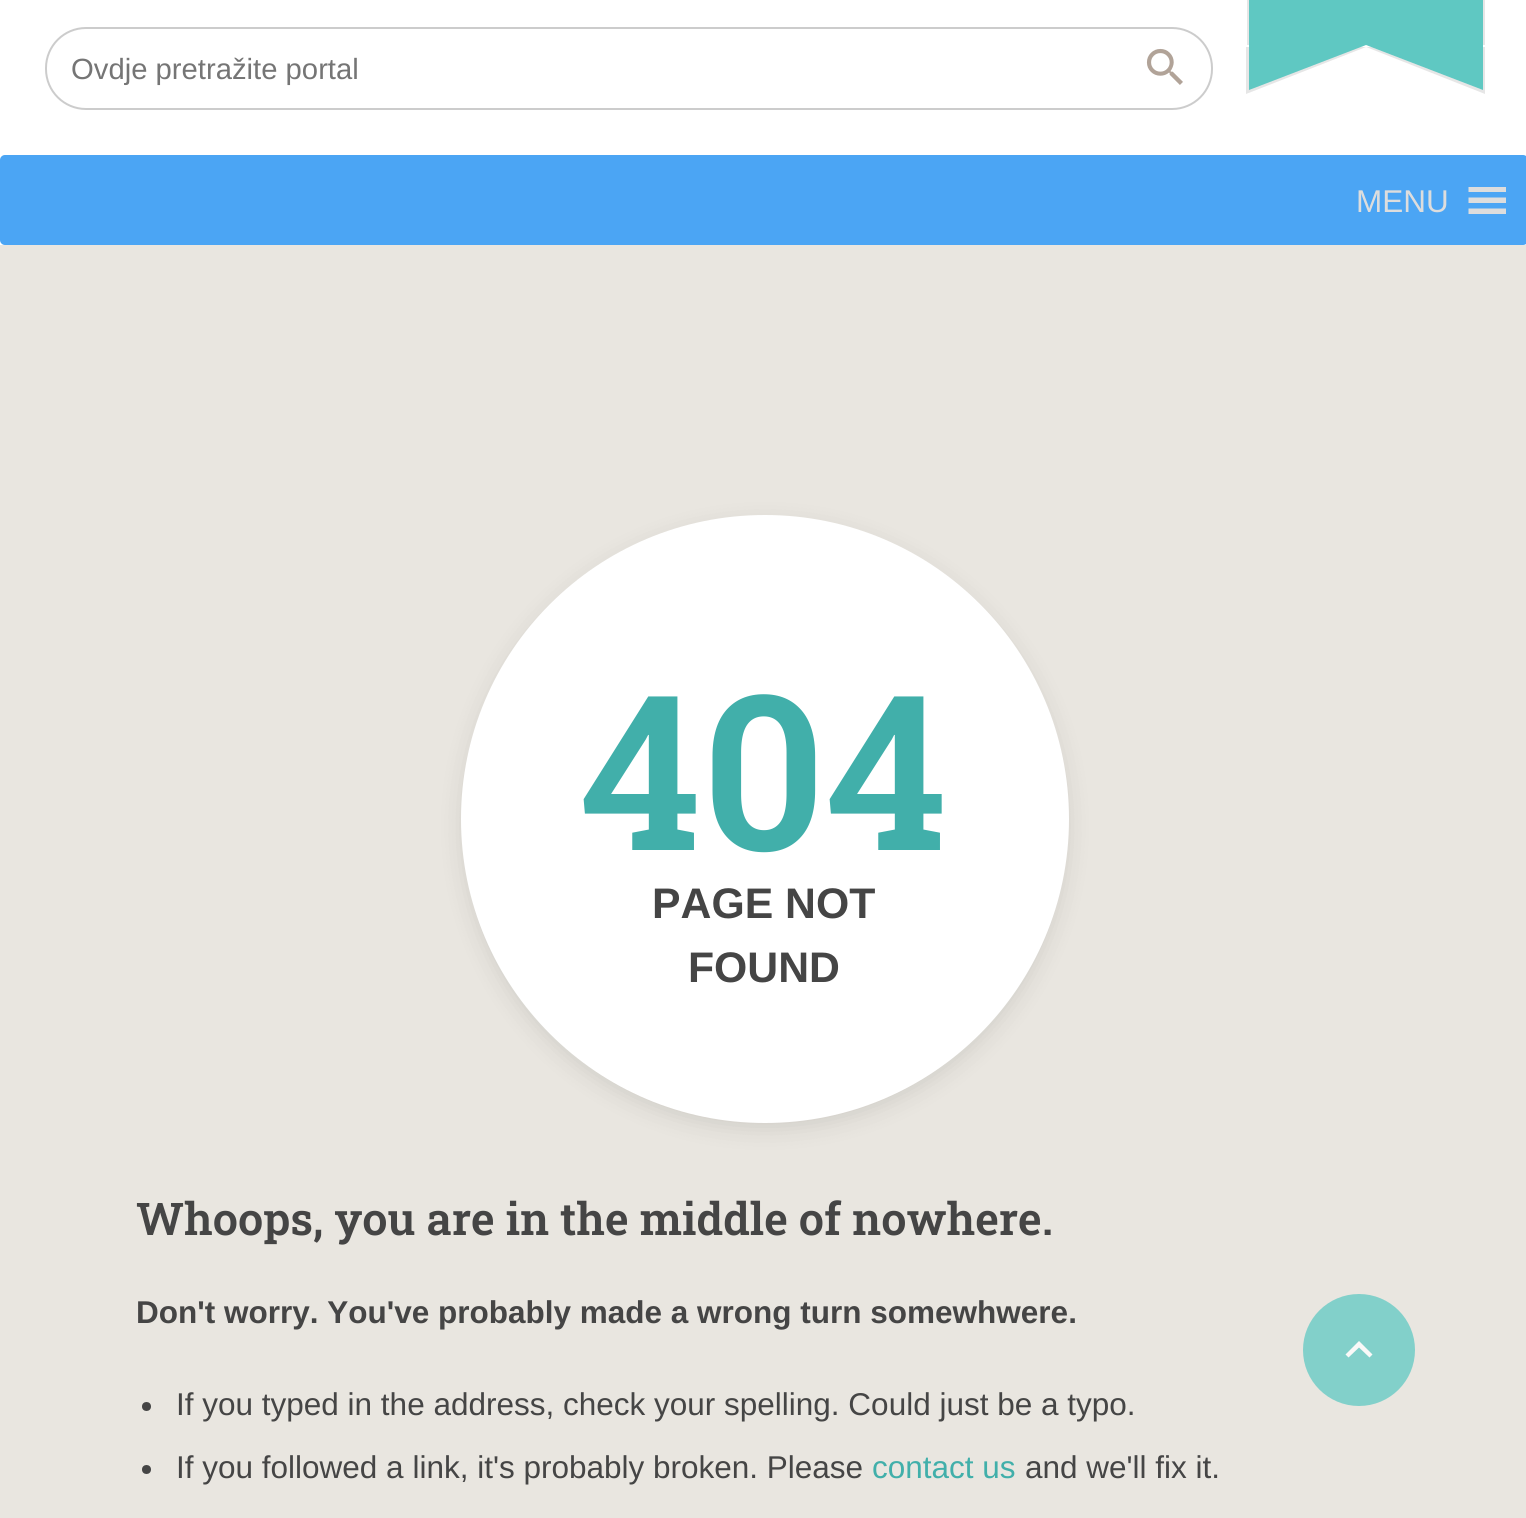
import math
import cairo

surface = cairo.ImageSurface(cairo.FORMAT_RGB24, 1526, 1518)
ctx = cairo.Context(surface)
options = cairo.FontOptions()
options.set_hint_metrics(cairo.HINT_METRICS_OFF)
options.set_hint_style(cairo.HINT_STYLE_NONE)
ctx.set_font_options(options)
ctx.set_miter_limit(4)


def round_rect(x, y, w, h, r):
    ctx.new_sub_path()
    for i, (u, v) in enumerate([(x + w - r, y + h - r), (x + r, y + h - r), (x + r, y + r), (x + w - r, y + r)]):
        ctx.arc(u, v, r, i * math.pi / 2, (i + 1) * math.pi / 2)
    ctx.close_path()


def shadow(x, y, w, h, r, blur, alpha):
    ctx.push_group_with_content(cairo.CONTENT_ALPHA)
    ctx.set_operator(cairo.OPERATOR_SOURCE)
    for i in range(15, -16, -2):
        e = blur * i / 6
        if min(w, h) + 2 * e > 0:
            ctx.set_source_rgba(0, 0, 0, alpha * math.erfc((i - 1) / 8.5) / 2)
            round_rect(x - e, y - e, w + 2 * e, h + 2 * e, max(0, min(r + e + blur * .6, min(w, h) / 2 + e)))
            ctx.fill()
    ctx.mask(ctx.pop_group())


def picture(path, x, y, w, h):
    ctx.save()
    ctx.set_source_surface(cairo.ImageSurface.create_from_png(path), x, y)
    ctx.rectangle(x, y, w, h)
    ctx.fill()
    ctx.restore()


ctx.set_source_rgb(0.914, 0.902, 0.878)
ctx.paint()
ctx.set_source_rgb(1, 1, 1)
ctx.rectangle(0, 0, 1526, 245)
ctx.fill()
round_rect(46, 28, 1166, 81, 40)
ctx.set_source_rgb(0.8, 0.8, 0.8)
ctx.stroke()
ctx.select_font_face("Liberation Sans")
ctx.set_font_size(29.25)
ctx.set_source_rgb(0.459, 0.459, 0.459)
ctx.move_to(71, 79)
ctx.show_text("Ovdje pretražite portal")
picture("img1.png", 1146, 48, 37, 37)
ctx.set_source_rgb(0.902, 0.902, 0.902)
ctx.rectangle(1247, 0, 2, 45)
ctx.fill()
ctx.rectangle(1483, 0, 2, 45)
ctx.fill()
ctx.set_source_rgb(0.373, 0.784, 0.761)
ctx.rectangle(1249, 0, 234, 45)
ctx.fill()
ctx.set_source_rgb(0.902, 0.902, 0.902)
ctx.new_path()
ctx.move_to(1246, 47)
ctx.line_to(1366, 47)
ctx.line_to(1246, 94)
ctx.close_path()
ctx.fill()
ctx.set_source_rgb(0.373, 0.784, 0.761)
ctx.new_path()
ctx.move_to(1249, 45)
ctx.line_to(1366, 45)
ctx.line_to(1249, 90)
ctx.close_path()
ctx.fill()
ctx.set_source_rgb(0.902, 0.902, 0.902)
ctx.new_path()
ctx.move_to(1485, 47)
ctx.line_to(1485, 94)
ctx.line_to(1366, 47)
ctx.close_path()
ctx.fill()
ctx.set_source_rgb(0.373, 0.784, 0.761)
ctx.new_path()
ctx.move_to(1483, 45)
ctx.line_to(1483, 90)
ctx.line_to(1366, 45)
ctx.close_path()
ctx.fill()
ctx.set_source_rgb(0.294, 0.647, 0.957)
round_rect(0, 155, 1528, 90, 5)
ctx.fill()
ctx.set_font_size(31.5)
ctx.set_source_rgb(0.867, 0.867, 0.867)
ctx.move_to(1356, 212)
ctx.show_text("MENU")
ctx.new_path()
ctx.move_to(1468.5, 214)
ctx.line_to(1506, 214)
ctx.line_to(1506, 208.5)
ctx.line_to(1468.5, 208.5)
ctx.close_path()
ctx.move_to(1468.5, 187)
ctx.line_to(1468.5, 192)
ctx.line_to(1506, 192)
ctx.line_to(1506, 187)
ctx.close_path()
ctx.move_to(1468.5, 203)
ctx.line_to(1506, 203)
ctx.line_to(1506, 197.5)
ctx.line_to(1468.5, 197.5)
ctx.close_path()
ctx.fill()
ctx.set_source_rgb(0, 0, 0)
shadow(461, 522, 608, 608, 304, 11, 0.1)
ctx.set_source_rgb(1, 1, 1)
ctx.arc(765, 819, 304, 0, 2 * math.pi)
ctx.fill()
ctx.select_font_face("Roboto Slab SemiBold")
ctx.set_font_size(216)
ctx.set_source_rgb(0.255, 0.686, 0.667)
ctx.move_to(579, 850)
ctx.show_text("404")
ctx.select_font_face("Liberation Sans", cairo.FONT_SLANT_NORMAL, cairo.FONT_WEIGHT_BOLD)
ctx.set_font_size(42.75)
ctx.set_source_rgb(0.271, 0.271, 0.271)
ctx.move_to(652, 918)
ctx.show_text("PAGE NOT")
ctx.move_to(688, 982)
ctx.show_text("FOUND")
ctx.select_font_face("Roboto Slab SemiBold")
ctx.set_font_size(45)
ctx.move_to(136, 1235)
ctx.show_text("Whoops, you are in the middle of nowhere.")
ctx.select_font_face("Liberation Sans", cairo.FONT_SLANT_NORMAL, cairo.FONT_WEIGHT_BOLD)
ctx.set_font_size(31.5)
ctx.move_to(136, 1323)
ctx.show_text("Don't worry. You've probably made a wrong turn somewhwere.")
ctx.new_path()
ctx.arc(146.5, 1406.5, 4.5, 0, 2 * math.pi)
ctx.fill()
ctx.select_font_face("Liberation Sans")
ctx.move_to(176, 1415)
ctx.show_text("If you typed in the address, check your spelling. Could just be a typo.")
ctx.new_path()
ctx.arc(146.5, 1469.5, 4.5, 0, 2 * math.pi)
ctx.fill()
ctx.move_to(176, 1478)
ctx.show_text("If you followed a link, it's probably broken. Please")
ctx.set_source_rgb(0.255, 0.686, 0.667)
ctx.move_to(872, 1478)
ctx.show_text("contact us")
ctx.set_source_rgb(0.271, 0.271, 0.271)
ctx.move_to(1025, 1478)
ctx.show_text("and we'll fix it.")
ctx.set_source_rgb(0.51, 0.816, 0.792)
ctx.new_path()
ctx.arc(1359, 1350, 56, 0, 2 * math.pi)
ctx.fill()
ctx.set_source_rgb(0.98, 0.976, 0.969)
ctx.new_path()
ctx.move_to(1348.5, 1357.5)
ctx.line_to(1345.5, 1354.5)
ctx.line_to(1359, 1341)
ctx.line_to(1372.5, 1354.5)
ctx.line_to(1369.5, 1357.5)
ctx.line_to(1359, 1347.5)
ctx.close_path()
ctx.fill()
surface.write_to_png("page.png")
